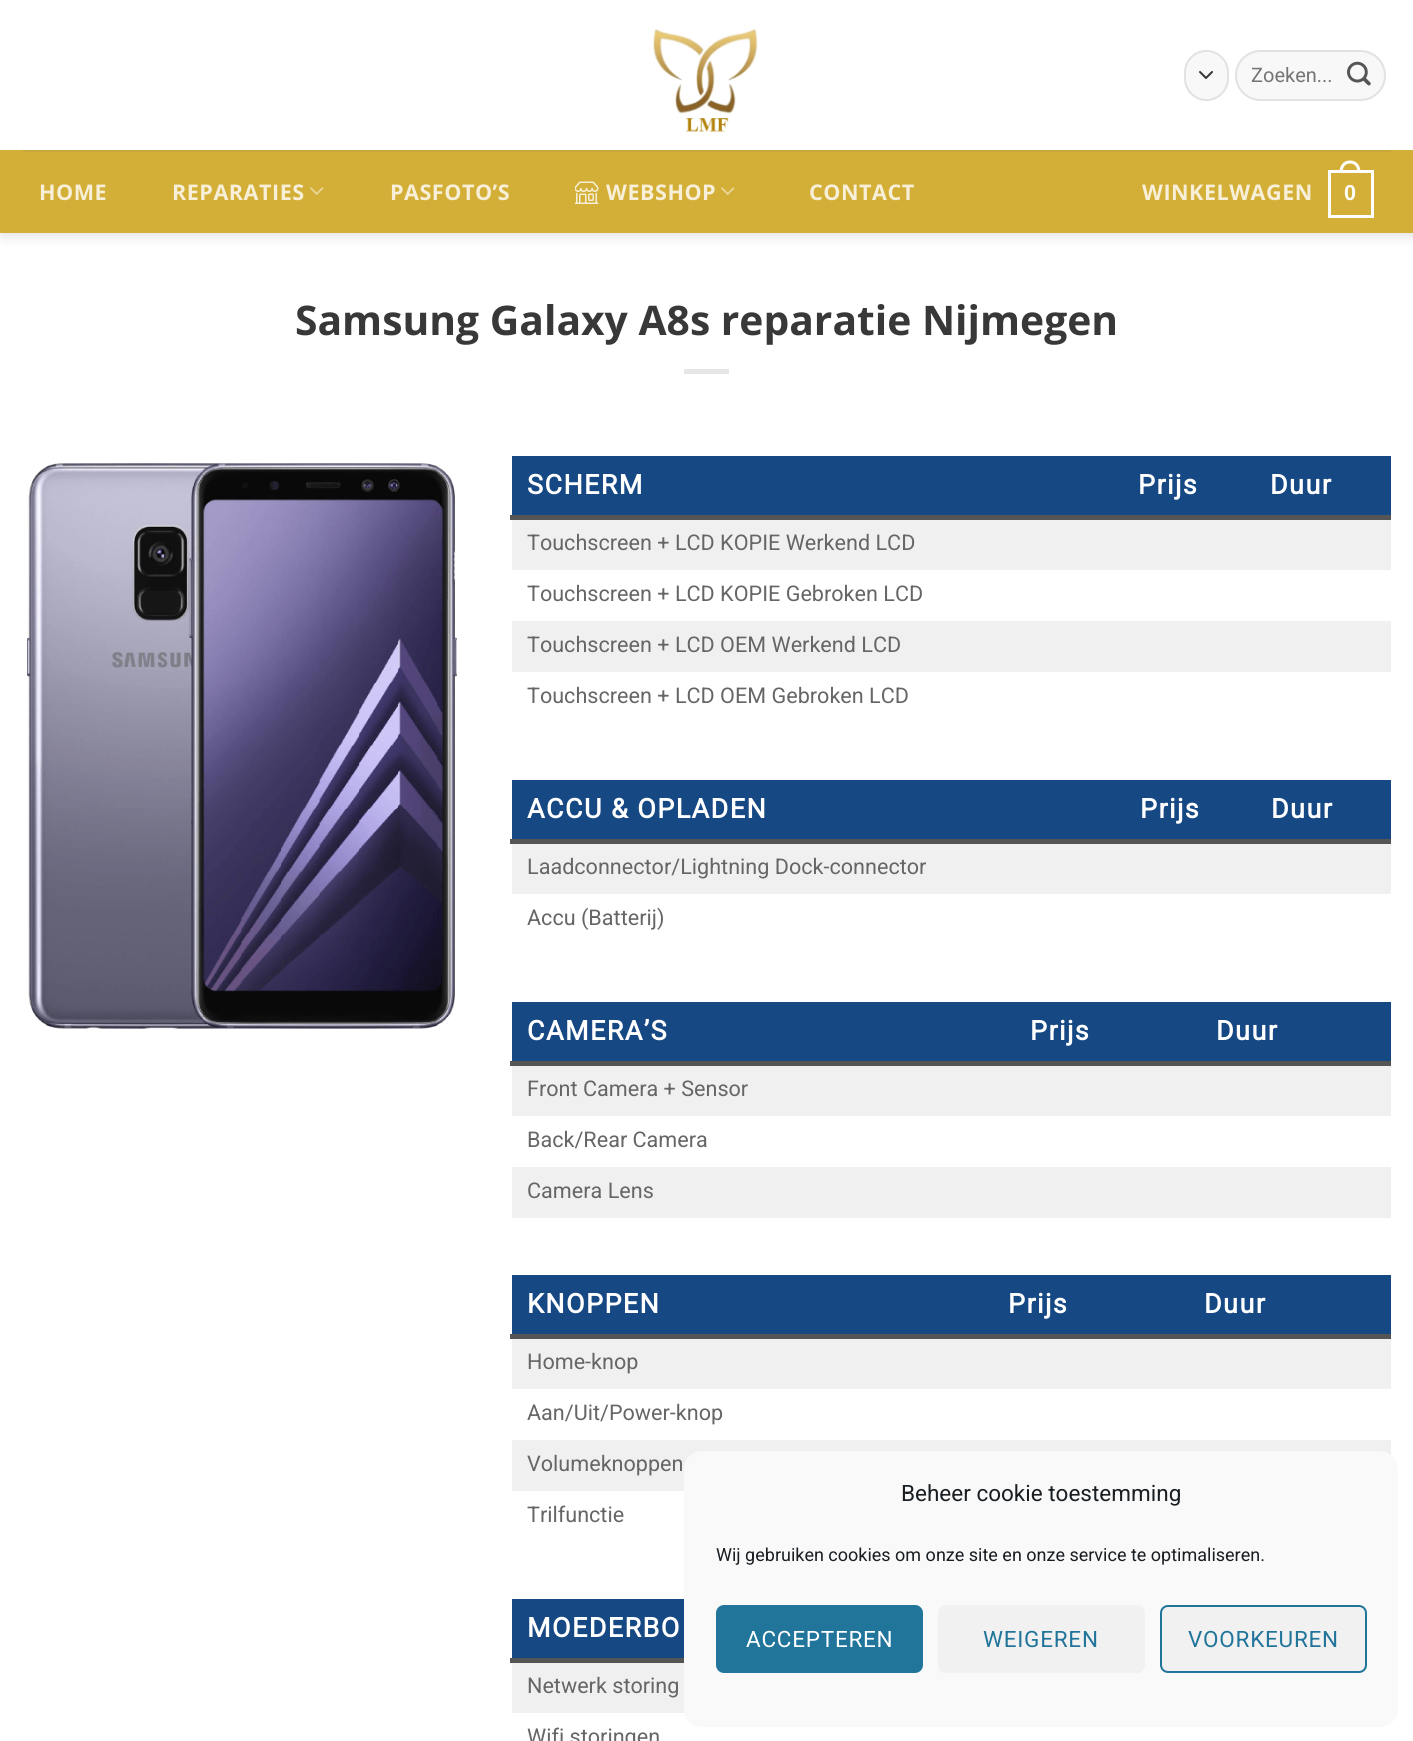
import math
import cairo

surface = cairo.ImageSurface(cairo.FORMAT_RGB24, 1413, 1741)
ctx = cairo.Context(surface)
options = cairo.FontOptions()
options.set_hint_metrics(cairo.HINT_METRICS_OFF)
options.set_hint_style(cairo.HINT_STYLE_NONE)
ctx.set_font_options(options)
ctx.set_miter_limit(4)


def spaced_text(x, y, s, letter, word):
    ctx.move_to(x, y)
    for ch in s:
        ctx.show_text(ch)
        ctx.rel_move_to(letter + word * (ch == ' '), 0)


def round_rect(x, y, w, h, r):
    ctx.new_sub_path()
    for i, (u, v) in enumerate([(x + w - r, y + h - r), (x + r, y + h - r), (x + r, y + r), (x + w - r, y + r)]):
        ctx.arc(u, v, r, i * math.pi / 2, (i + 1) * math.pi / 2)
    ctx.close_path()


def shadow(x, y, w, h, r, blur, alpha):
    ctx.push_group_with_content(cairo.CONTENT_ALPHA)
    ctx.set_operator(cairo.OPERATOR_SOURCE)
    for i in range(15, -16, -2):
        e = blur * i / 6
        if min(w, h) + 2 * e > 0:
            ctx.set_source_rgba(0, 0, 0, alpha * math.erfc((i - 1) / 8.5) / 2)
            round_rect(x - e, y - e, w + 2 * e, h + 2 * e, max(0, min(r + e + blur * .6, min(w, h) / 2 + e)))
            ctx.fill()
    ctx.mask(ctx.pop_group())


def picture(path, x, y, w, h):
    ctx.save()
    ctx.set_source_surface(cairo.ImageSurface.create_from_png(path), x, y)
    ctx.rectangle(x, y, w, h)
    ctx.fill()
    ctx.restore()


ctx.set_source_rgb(1, 1, 1)
ctx.paint()
ctx.set_source_rgb(0, 0, 0)
shadow(2, 2, 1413, 232, 0, 7.5, 0.15)
ctx.set_source_rgb(1, 1, 1)
ctx.rectangle(0, 0, 1413, 150)
ctx.fill()
picture("img1.png", 652, 29, 106, 103)
ctx.set_source_rgb(0.969, 0.969, 0.969)
round_rect(1184, 50, 45, 51, 22.5)
ctx.fill()
ctx.new_path()
ctx.move_to(1200, 72)
ctx.line_to(1206, 78)
ctx.line_to(1212, 72)
ctx.set_source_rgb(0.2, 0.2, 0.2)
ctx.set_line_cap(cairo.LINE_CAP_ROUND)
ctx.set_line_join(cairo.LINE_JOIN_ROUND)
ctx.stroke()
round_rect(1185, 51, 43, 49, 21.5)
ctx.set_source_rgba(0, 0, 0, 0.09)
ctx.set_line_cap(cairo.LINE_CAP_BUTT)
ctx.set_line_join(cairo.LINE_JOIN_MITER)
ctx.stroke()
ctx.set_source_rgb(0.969, 0.969, 0.969)
round_rect(1235, 50, 151, 51, 25.5)
ctx.fill()
round_rect(1236, 51, 149, 49, 24.5)
ctx.set_source_rgba(0, 0, 0, 0.09)
ctx.stroke()
ctx.select_font_face("Roboto")
ctx.set_font_size(20)
ctx.set_source_rgb(0.459, 0.459, 0.459)
ctx.move_to(1251, 82)
ctx.show_text("Zoeken...")
picture("img2.png", 1347, 61, 24, 25)
ctx.set_source_rgb(0.831, 0.686, 0.216)
ctx.rectangle(0, 150, 1413, 83)
ctx.fill()
ctx.set_source_rgb(0.78, 0.651, 0.227)
ctx.rectangle(23, 150, 1368, 2)
ctx.fill()
ctx.select_font_face("Open Sans", cairo.FONT_SLANT_NORMAL, cairo.FONT_WEIGHT_BOLD)
ctx.set_font_size(21.6)
ctx.set_source_rgb(0.965, 0.937, 0.843)
spaced_text(39, 200, "HOME", 0.5, 0)
spaced_text(172, 200, "REPARATIES", 0.5, 0)
picture("img3.png", 310, 187, 14, 8)
spaced_text(390, 200, "PASFOTO’S", 0.5, 0)
picture("img4.png", 575, 181, 24, 23)
spaced_text(606, 200, "WEBSHOP", 0.5, 0)
picture("img3.png", 721, 187, 14, 8)
spaced_text(809, 200, "CONTACT", 0.5, 0)
spaced_text(1142, 200, "WINKELWAGEN", 0.5, 0)
ctx.rectangle(1329.5, 171.5, 43, 45)
ctx.set_source_rgb(1, 1, 1)
ctx.set_line_width(3)
ctx.stroke()
ctx.set_fill_rule(cairo.FILL_RULE_EVEN_ODD)
ctx.new_path()
ctx.move_to(1350, 160.5)
ctx.curve_to(1357, 160.5, 1360.5, 166, 1360.5, 172.5)
ctx.line_to(1339.5, 172.5)
ctx.curve_to(1339.5, 166, 1343, 160.5, 1350, 160.5)
ctx.close_path()
ctx.move_to(1350, 163.5)
ctx.curve_to(1355.5, 163.5, 1357.5, 168, 1357.5, 172.5)
ctx.line_to(1342.5, 172.5)
ctx.curve_to(1342.5, 168, 1344.5, 163.5, 1350, 163.5)
ctx.close_path()
ctx.fill()
ctx.select_font_face("Liberation Sans", cairo.FONT_SLANT_NORMAL, cairo.FONT_WEIGHT_BOLD)
spaced_text(1344, 200, "0", 0.5, 0)
ctx.select_font_face("Open Sans", cairo.FONT_SLANT_NORMAL, cairo.FONT_WEIGHT_BOLD)
ctx.set_font_size(40.8)
ctx.set_source_rgb(0.22, 0.22, 0.22)
ctx.move_to(295, 335)
ctx.show_text("Samsung Galaxy A8s reparatie Nijmegen")
ctx.set_source_rgb(0.902, 0.902, 0.902)
ctx.rectangle(684, 369, 45, 5)
ctx.fill()
picture("img5.png", 27, 463, 430, 566)
ctx.set_source_rgb(0.333, 0.333, 0.333)
ctx.rectangle(510, 515, 881, 5)
ctx.fill()
ctx.set_source_rgb(0.086, 0.282, 0.514)
ctx.rectangle(512, 456, 879, 59)
ctx.fill()
ctx.select_font_face("Roboto", cairo.FONT_SLANT_NORMAL, cairo.FONT_WEIGHT_BOLD)
ctx.set_font_size(27)
ctx.set_source_rgb(1, 1, 1)
spaced_text(527, 494, "SCHERM", 1.4, 0)
spaced_text(1138, 494, "Prijs", 1.4, 0)
spaced_text(1270, 494, "Duur", 1.4, 0)
ctx.set_source_rgb(0.941, 0.941, 0.941)
ctx.rectangle(512, 520, 879, 50)
ctx.fill()
ctx.select_font_face("Roboto")
ctx.set_font_size(21.6)
ctx.set_source_rgb(0.4, 0.4, 0.4)
ctx.move_to(527, 550)
ctx.show_text("Touchscreen + LCD KOPIE Werkend LCD")
ctx.move_to(527, 601)
ctx.show_text("Touchscreen + LCD KOPIE Gebroken LCD")
ctx.set_source_rgb(0.941, 0.941, 0.941)
ctx.rectangle(512, 621, 879, 51)
ctx.fill()
ctx.set_source_rgb(0.4, 0.4, 0.4)
ctx.move_to(527, 652)
ctx.show_text("Touchscreen + LCD OEM Werkend LCD")
ctx.move_to(527, 703)
ctx.show_text("Touchscreen + LCD OEM Gebroken LCD")
ctx.set_source_rgb(0.333, 0.333, 0.333)
ctx.rectangle(510, 839, 881, 5)
ctx.fill()
ctx.set_source_rgb(0.086, 0.282, 0.514)
ctx.rectangle(512, 780, 879, 59)
ctx.fill()
ctx.select_font_face("Roboto", cairo.FONT_SLANT_NORMAL, cairo.FONT_WEIGHT_BOLD)
ctx.set_font_size(27)
ctx.set_source_rgb(1, 1, 1)
spaced_text(527, 818, "ACCU & OPLADEN", 1.4, 0)
spaced_text(1140, 818, "Prijs", 1.4, 0)
spaced_text(1271, 818, "Duur", 1.4, 0)
ctx.set_source_rgb(0.941, 0.941, 0.941)
ctx.rectangle(512, 844, 879, 50)
ctx.fill()
ctx.select_font_face("Roboto")
ctx.set_font_size(21.6)
ctx.set_source_rgb(0.4, 0.4, 0.4)
ctx.move_to(527, 874)
ctx.show_text("Laadconnector/Lightning Dock-connector")
ctx.move_to(527, 925)
ctx.show_text("Accu (Batterij)")
ctx.set_source_rgb(0.333, 0.333, 0.333)
ctx.rectangle(510, 1061, 881, 5)
ctx.fill()
ctx.set_source_rgb(0.086, 0.282, 0.514)
ctx.rectangle(512, 1002, 879, 59)
ctx.fill()
ctx.select_font_face("Roboto", cairo.FONT_SLANT_NORMAL, cairo.FONT_WEIGHT_BOLD)
ctx.set_font_size(27)
ctx.set_source_rgb(1, 1, 1)
spaced_text(527, 1040, "CAMERA’S", 1.4, 0)
spaced_text(1030, 1040, "Prijs", 1.4, 0)
spaced_text(1216, 1040, "Duur", 1.4, 0)
ctx.set_source_rgb(0.941, 0.941, 0.941)
ctx.rectangle(512, 1066, 879, 50)
ctx.fill()
ctx.select_font_face("Roboto")
ctx.set_font_size(21.6)
ctx.set_source_rgb(0.4, 0.4, 0.4)
ctx.move_to(527, 1096)
ctx.show_text("Front Camera + Sensor")
ctx.move_to(527, 1147)
ctx.show_text("Back/Rear Camera")
ctx.set_source_rgb(0.941, 0.941, 0.941)
ctx.rectangle(512, 1167, 879, 51)
ctx.fill()
ctx.set_source_rgb(0.4, 0.4, 0.4)
ctx.move_to(527, 1198)
ctx.show_text("Camera Lens")
ctx.set_source_rgb(0.333, 0.333, 0.333)
ctx.rectangle(510, 1334, 881, 5)
ctx.fill()
ctx.set_source_rgb(0.086, 0.282, 0.514)
ctx.rectangle(512, 1275, 879, 59)
ctx.fill()
ctx.select_font_face("Roboto", cairo.FONT_SLANT_NORMAL, cairo.FONT_WEIGHT_BOLD)
ctx.set_font_size(27)
ctx.set_source_rgb(1, 1, 1)
spaced_text(527, 1313, "KNOPPEN", 1.4, 0)
spaced_text(1008, 1313, "Prijs", 1.4, 0)
spaced_text(1204, 1313, "Duur", 1.4, 0)
ctx.set_source_rgb(0.941, 0.941, 0.941)
ctx.rectangle(512, 1339, 879, 50)
ctx.fill()
ctx.select_font_face("Roboto")
ctx.set_font_size(21.6)
ctx.set_source_rgb(0.4, 0.4, 0.4)
ctx.move_to(527, 1369)
ctx.show_text("Home-knop")
ctx.move_to(527, 1420)
ctx.show_text("Aan/Uit/Power-knop")
ctx.set_source_rgb(0.941, 0.941, 0.941)
ctx.rectangle(512, 1440, 879, 51)
ctx.fill()
ctx.set_source_rgb(0.4, 0.4, 0.4)
ctx.move_to(527, 1471)
ctx.show_text("Volumeknoppen")
ctx.move_to(527, 1522)
ctx.show_text("Trilfunctie")
ctx.set_source_rgb(0.333, 0.333, 0.333)
ctx.rectangle(510, 1658, 174, 5)
ctx.fill()
ctx.set_source_rgb(0.086, 0.282, 0.514)
ctx.rectangle(512, 1599, 172, 59)
ctx.fill()
ctx.select_font_face("Roboto", cairo.FONT_SLANT_NORMAL, cairo.FONT_WEIGHT_BOLD)
ctx.set_font_size(27)
ctx.set_source_rgb(1, 1, 1)
spaced_text(527, 1637, "MOEDERBO", 1.4, 0)
ctx.set_source_rgb(0.941, 0.941, 0.941)
ctx.rectangle(512, 1663, 173, 50)
ctx.fill()
ctx.select_font_face("Roboto")
ctx.set_font_size(21.6)
ctx.set_source_rgb(0.4, 0.4, 0.4)
ctx.move_to(527, 1693)
ctx.show_text("Netwerk storing")
ctx.move_to(527, 1744)
ctx.show_text("Wifi storingen")
ctx.set_source_rgb(0.976, 0.976, 0.976)
round_rect(684, 1451, 714, 276, 18)
ctx.fill()
ctx.set_font_size(22.5)
ctx.set_source_rgb(0.098, 0.118, 0.137)
ctx.move_to(901, 1501)
ctx.show_text("Beheer cookie toestemming")
ctx.set_font_size(18)
ctx.move_to(716, 1561)
ctx.show_text("Wij gebruiken cookies om onze site en onze service te optimaliseren.")
ctx.set_source_rgb(0.129, 0.459, 0.608)
round_rect(717, 1606, 205, 66, 7)
ctx.fill_preserve()
ctx.set_line_width(2)
ctx.stroke()
ctx.set_font_size(22.5)
ctx.set_source_rgb(1, 1, 1)
spaced_text(746, 1647, "ACCEPTEREN", 0.75, 0)
ctx.set_source_rgb(0.945, 0.945, 0.945)
round_rect(938, 1605, 207, 68, 8)
ctx.fill()
ctx.set_source_rgb(0.129, 0.459, 0.608)
spaced_text(983, 1647, "WEIGEREN", 0.75, 0)
ctx.set_source_rgb(0.945, 0.945, 0.945)
round_rect(1161, 1606, 205, 66, 7)
ctx.fill_preserve()
ctx.set_source_rgb(0.129, 0.459, 0.608)
ctx.stroke()
spaced_text(1188, 1647, "VOORKEUREN", 0.75, 0)
surface.write_to_png("page.png")
